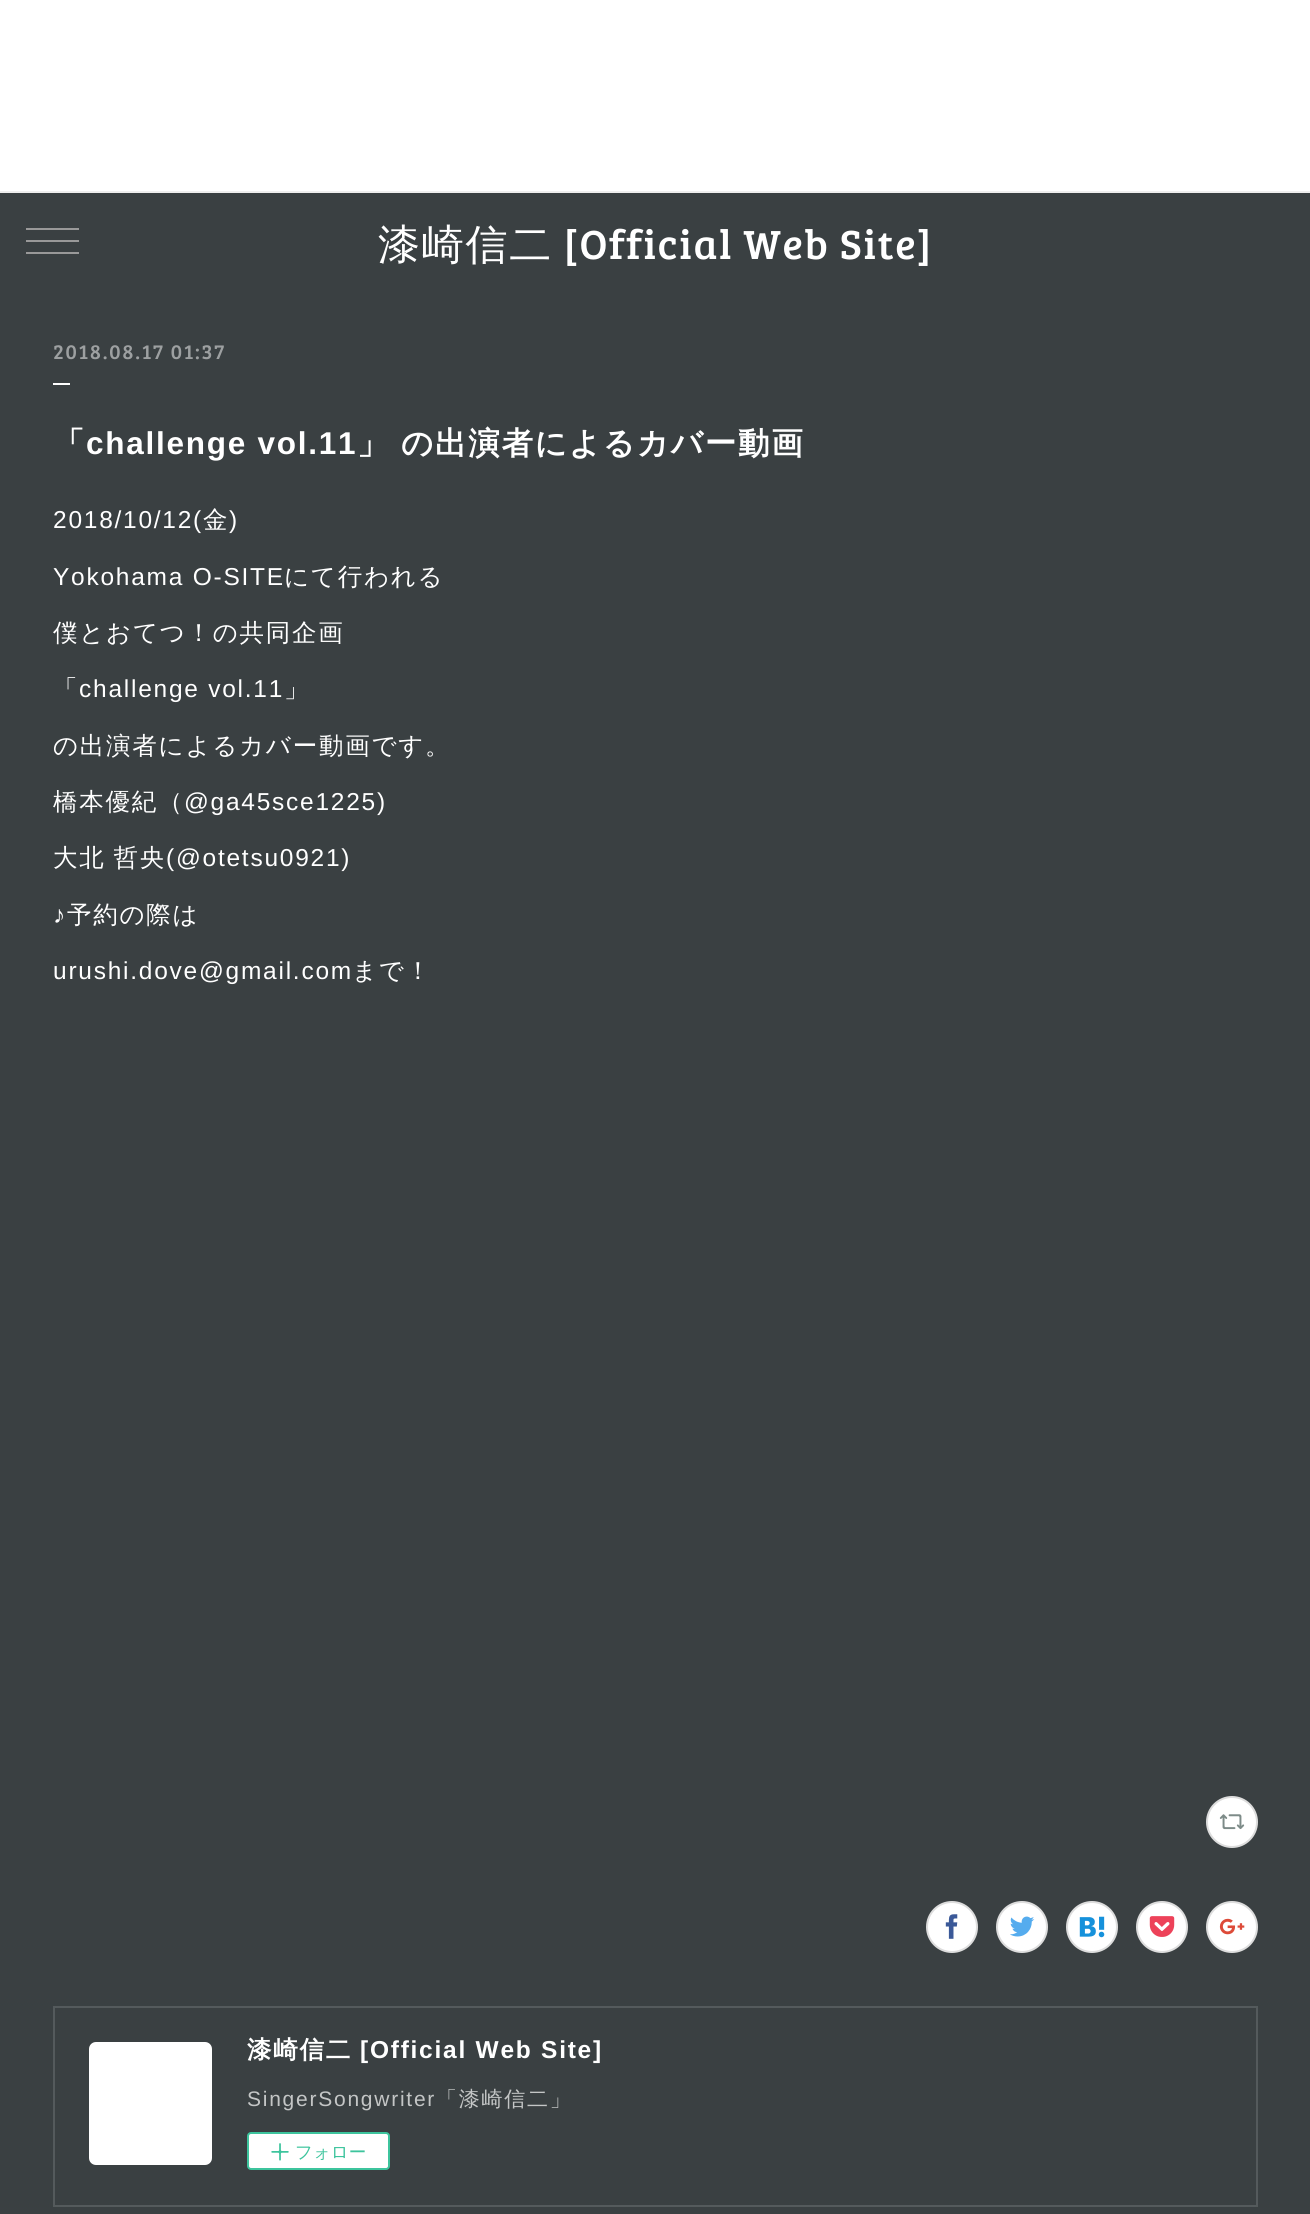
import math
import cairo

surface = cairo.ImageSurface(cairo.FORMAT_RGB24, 1310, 2214)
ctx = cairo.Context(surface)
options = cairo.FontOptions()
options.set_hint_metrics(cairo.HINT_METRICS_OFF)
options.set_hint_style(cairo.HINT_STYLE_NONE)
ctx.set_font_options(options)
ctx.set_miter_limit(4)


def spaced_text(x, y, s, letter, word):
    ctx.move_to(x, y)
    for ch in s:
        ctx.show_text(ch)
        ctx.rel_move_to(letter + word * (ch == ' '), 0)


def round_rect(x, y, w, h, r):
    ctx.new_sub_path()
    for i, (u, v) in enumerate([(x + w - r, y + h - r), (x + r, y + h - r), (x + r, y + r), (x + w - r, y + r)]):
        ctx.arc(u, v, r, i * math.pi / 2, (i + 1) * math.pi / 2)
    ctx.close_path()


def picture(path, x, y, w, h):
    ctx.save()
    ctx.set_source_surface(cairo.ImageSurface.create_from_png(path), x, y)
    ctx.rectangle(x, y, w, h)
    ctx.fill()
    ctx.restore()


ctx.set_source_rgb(0.227, 0.251, 0.259)
ctx.paint()
ctx.set_source_rgb(1, 1, 1)
ctx.rectangle(0, 0, 1310, 191)
ctx.fill()
ctx.set_source_rgb(0.933, 0.933, 0.933)
ctx.rectangle(0, 191, 1310, 2)
ctx.fill()
ctx.set_source_rgb(0.6, 0.6, 0.6)
ctx.rectangle(26, 228, 53, 2)
ctx.fill()
ctx.rectangle(26, 240, 53, 2)
ctx.fill()
ctx.rectangle(26, 252, 53, 2)
ctx.fill()
ctx.select_font_face("WenQuanYi Zen Hei Medium")
ctx.set_font_size(42)
ctx.set_source_rgb(1, 1, 1)
spaced_text(378, 259, "漆崎信二", 1.75, 0)
ctx.select_font_face("Bree Serif")
spaced_text(564, 259, "[Official Web Site]", 1.75, 0)
ctx.set_font_size(21)
ctx.set_source_rgb(0.616, 0.627, 0.631)
spaced_text(53, 359, "2018.08.17 01:37", 1.75, 0)
ctx.set_source_rgb(1, 1, 1)
ctx.rectangle(53, 383, 17, 2)
ctx.fill()
ctx.select_font_face("WenQuanYi Zen Hei", cairo.FONT_SLANT_NORMAL, cairo.FONT_WEIGHT_BOLD)
ctx.set_font_size(31.5)
spaced_text(53, 454, "「", 1.75, 0)
ctx.select_font_face("Liberation Sans", cairo.FONT_SLANT_NORMAL, cairo.FONT_WEIGHT_BOLD)
spaced_text(86, 454, "challenge vol.11", 1.75, 0)
ctx.select_font_face("WenQuanYi Zen Hei", cairo.FONT_SLANT_NORMAL, cairo.FONT_WEIGHT_BOLD)
spaced_text(357, 454, "」", 1.75, 0)
spaced_text(401, 454, "の出演者によるカバー動画", 1.75, 0)
ctx.select_font_face("Liberation Sans")
ctx.set_font_size(24.5)
spaced_text(53, 528, "2018/10/12(", 1.75, 0)
ctx.select_font_face("WenQuanYi Zen Hei Medium")
spaced_text(203, 528, "金", 1.75, 0)
ctx.select_font_face("Liberation Sans")
spaced_text(229, 528, ")", 1.75, 0)
spaced_text(53, 585, "Yokohama O-SITE", 1.75, 0)
ctx.select_font_face("WenQuanYi Zen Hei Medium")
spaced_text(284, 585, "にて行われる", 1.75, 0)
spaced_text(53, 641, "僕とおてつ！の共同企画", 1.75, 0)
spaced_text(53, 697, "「", 1.75, 0)
ctx.select_font_face("Liberation Sans")
spaced_text(79, 697, "challenge vol.11", 1.75, 0)
ctx.select_font_face("WenQuanYi Zen Hei Medium")
spaced_text(284, 697, "」", 1.75, 0)
spaced_text(53, 754, "の出演者によるカバー動画です。", 1.75, 0)
spaced_text(53, 810, "橋本優紀（", 1.75, 0)
ctx.select_font_face("Liberation Sans")
spaced_text(184, 810, "@ga45sce1225)", 1.75, 0)
ctx.select_font_face("WenQuanYi Zen Hei Medium")
spaced_text(53, 866, "大北 哲央", 1.75, -1)
ctx.select_font_face("Liberation Sans")
spaced_text(166, 866, "(@otetsu0921)", 1.75, 0)
spaced_text(53, 923, "♪", 1.75, 0)
ctx.select_font_face("WenQuanYi Zen Hei Medium")
spaced_text(67, 923, "予約の際は", 1.75, 0)
ctx.select_font_face("Liberation Sans")
spaced_text(53, 979, "urushi.dove@gmail.com", 1.75, 0)
ctx.select_font_face("WenQuanYi Zen Hei Medium")
spaced_text(352, 979, "まで！", 1.75, 0)
ctx.new_path()
ctx.arc(1232, 1822, 25, 0, 2 * math.pi)
ctx.fill_preserve()
ctx.set_source_rgb(0.867, 0.867, 0.867)
ctx.stroke()
picture("img1.png", 1219, 1814, 26, 16)
ctx.set_source_rgb(1, 1, 1)
ctx.arc(952, 1927, 25, 0, 2 * math.pi)
ctx.fill_preserve()
ctx.set_source_rgb(0.867, 0.867, 0.867)
ctx.stroke()
picture("img2.png", 945, 1914, 13, 25)
ctx.set_source_rgb(1, 1, 1)
ctx.arc(1022, 1927, 25, 0, 2 * math.pi)
ctx.fill_preserve()
ctx.set_source_rgb(0.867, 0.867, 0.867)
ctx.stroke()
picture("img3.png", 1010, 1916, 25, 21)
ctx.set_source_rgb(1, 1, 1)
ctx.arc(1092, 1927, 25, 0, 2 * math.pi)
ctx.fill_preserve()
ctx.set_source_rgb(0.867, 0.867, 0.867)
ctx.stroke()
picture("img4.png", 1079, 1916, 26, 22)
ctx.set_source_rgb(1, 1, 1)
ctx.arc(1162, 1927, 25, 0, 2 * math.pi)
ctx.fill_preserve()
ctx.set_source_rgb(0.867, 0.867, 0.867)
ctx.stroke()
picture("img5.png", 1149, 1916, 26, 21)
ctx.set_source_rgb(1, 1, 1)
ctx.arc(1232, 1927, 25, 0, 2 * math.pi)
ctx.fill_preserve()
ctx.set_source_rgb(0.867, 0.867, 0.867)
ctx.stroke()
picture("img6.png", 1219, 1918, 26, 17)
ctx.rectangle(54, 2007, 1203, 199)
ctx.set_source_rgb(0.329, 0.353, 0.361)
ctx.stroke()
ctx.set_source_rgb(1, 1, 1)
round_rect(89, 2042, 123, 123, 7)
ctx.fill()
ctx.select_font_face("WenQuanYi Zen Hei", cairo.FONT_SLANT_NORMAL, cairo.FONT_WEIGHT_BOLD)
spaced_text(247, 2058, "漆崎信二", 1.75, 0)
ctx.select_font_face("Liberation Sans", cairo.FONT_SLANT_NORMAL, cairo.FONT_WEIGHT_BOLD)
spaced_text(360, 2058, "[Official Web Site]", 1.75, 0)
ctx.select_font_face("Liberation Sans")
ctx.set_font_size(21)
ctx.set_source_rgb(0.769, 0.776, 0.776)
spaced_text(247, 2106, "SingerSongwriter", 1.75, 0)
ctx.select_font_face("WenQuanYi Zen Hei Medium")
spaced_text(436, 2106, "「漆崎信二」", 1.75, 0)
ctx.set_source_rgb(1, 1, 1)
round_rect(248, 2133, 141, 36, 3)
ctx.fill_preserve()
ctx.set_source_rgb(0.239, 0.769, 0.616)
ctx.stroke()
picture("img7.png", 271, 2143, 18, 18)
ctx.set_font_size(17.5)
ctx.move_to(295, 2158)
ctx.show_text("フォロー")
surface.write_to_png("page.png")
